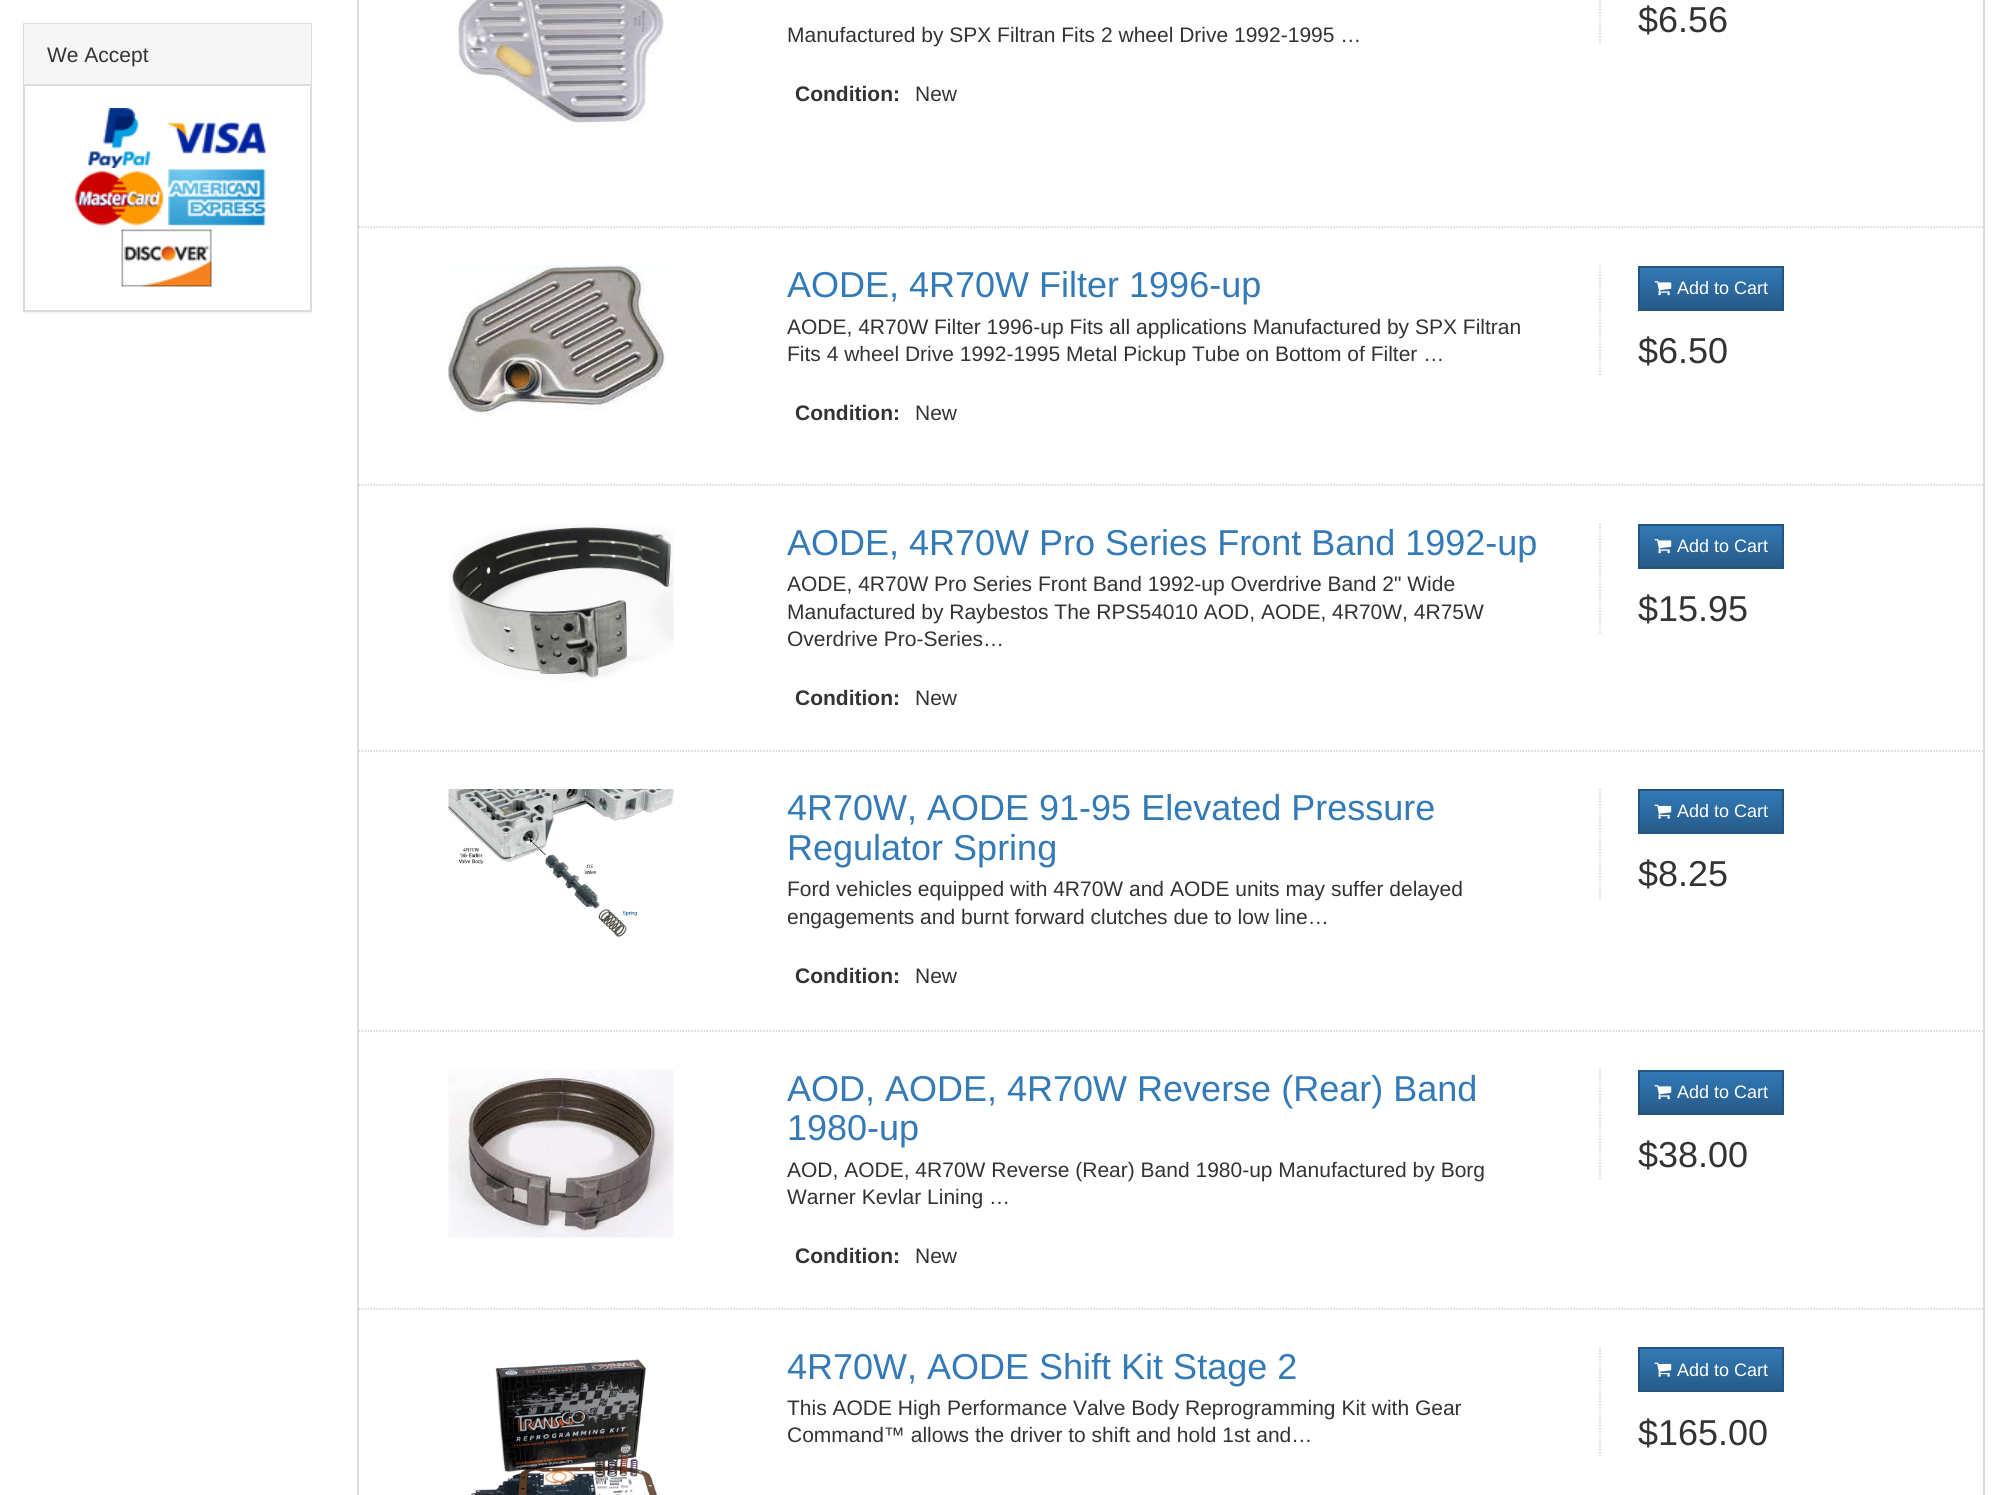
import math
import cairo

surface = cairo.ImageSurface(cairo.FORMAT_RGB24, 2007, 1495)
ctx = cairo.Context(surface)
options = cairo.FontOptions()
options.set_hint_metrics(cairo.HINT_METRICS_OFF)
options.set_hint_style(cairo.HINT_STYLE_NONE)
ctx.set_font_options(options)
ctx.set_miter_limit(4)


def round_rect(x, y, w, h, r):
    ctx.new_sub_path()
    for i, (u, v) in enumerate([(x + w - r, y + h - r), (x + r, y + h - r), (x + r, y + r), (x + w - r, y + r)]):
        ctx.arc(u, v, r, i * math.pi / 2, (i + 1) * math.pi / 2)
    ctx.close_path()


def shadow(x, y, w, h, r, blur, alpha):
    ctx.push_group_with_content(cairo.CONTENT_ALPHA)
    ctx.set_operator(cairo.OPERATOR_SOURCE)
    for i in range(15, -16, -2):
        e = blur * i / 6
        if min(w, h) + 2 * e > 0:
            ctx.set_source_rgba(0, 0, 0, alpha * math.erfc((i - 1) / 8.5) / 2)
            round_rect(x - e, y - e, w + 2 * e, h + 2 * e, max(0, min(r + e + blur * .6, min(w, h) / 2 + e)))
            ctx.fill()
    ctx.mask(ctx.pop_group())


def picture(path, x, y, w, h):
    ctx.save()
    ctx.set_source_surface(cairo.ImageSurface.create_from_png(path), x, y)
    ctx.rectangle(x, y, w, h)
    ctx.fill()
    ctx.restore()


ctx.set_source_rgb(1, 1, 1)
ctx.paint()
ctx.save()
ctx.rectangle(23, 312, 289, 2)
ctx.clip()
ctx.set_source_rgb(0, 0, 0)
shadow(23, 24, 289, 290, 0, 1, 0.05)
ctx.restore()
ctx.rectangle(24, 24, 287, 287)
ctx.set_source_rgb(0.867, 0.867, 0.867)
ctx.stroke()
ctx.set_source_rgb(0.961, 0.961, 0.961)
ctx.rectangle(24, 24, 287, 60)
ctx.fill()
ctx.set_source_rgb(0.867, 0.867, 0.867)
ctx.rectangle(24, 84, 287, 2)
ctx.fill()
ctx.select_font_face("Liberation Sans")
ctx.set_font_size(21)
ctx.set_source_rgb(0.2, 0.2, 0.2)
ctx.move_to(47, 62)
ctx.show_text("We Accept")
picture("img1.png", 88, 108, 63, 60)
picture("img2.png", 168, 122, 98, 32)
picture("img3.png", 74, 170, 90, 56)
picture("img4.png", 168, 169, 98, 57)
picture("img5.png", 121, 229, 91, 58)
ctx.rectangle(358, -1, 1626, 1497)
ctx.set_source_rgb(0.867, 0.867, 0.867)
ctx.stroke()
ctx.new_path()
ctx.move_to(358.5, 227)
ctx.line_to(1983, 227)
ctx.set_source_rgb(0.8, 0.8, 0.8)
ctx.set_line_width(1.5)
ctx.set_dash([1.5, 1.5])
ctx.stroke()
picture("img6.png", 458, 0, 207, 126)
ctx.new_path()
ctx.move_to(1600, -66)
ctx.line_to(1600, 45)
ctx.stroke()
ctx.set_font_size(36)
ctx.set_source_rgb(0.2, 0.2, 0.2)
ctx.move_to(1638, 32)
ctx.show_text("$6.56")
ctx.set_font_size(21)
ctx.move_to(787, 42)
ctx.show_text("Manufactured by SPX Filtran Fits 2 wheel Drive 1992-1995 …")
ctx.select_font_face("Liberation Sans", cairo.FONT_SLANT_NORMAL, cairo.FONT_WEIGHT_BOLD)
ctx.move_to(795, 101)
ctx.show_text("Condition:")
ctx.select_font_face("Liberation Sans")
ctx.move_to(915, 101)
ctx.show_text("New")
ctx.new_path()
ctx.move_to(358.5, 485)
ctx.line_to(1983, 485)
ctx.set_source_rgb(0.8, 0.8, 0.8)
ctx.stroke()
picture("img7.png", 448, 265, 226, 152)
ctx.set_font_size(36)
ctx.set_source_rgb(0.2, 0.478, 0.718)
ctx.move_to(787, 297)
ctx.show_text("AODE, 4R70W Filter 1996-up")
ctx.set_font_size(21)
ctx.set_source_rgb(0.2, 0.2, 0.2)
ctx.move_to(787, 334)
ctx.show_text("AODE, 4R70W Filter 1996-up Fits all applications Manufactured by SPX Filtran")
ctx.move_to(787, 361)
ctx.show_text("Fits 4 wheel Drive 1992-1995 Metal Pickup Tube on Bottom of Filter …")
ctx.select_font_face("Liberation Sans", cairo.FONT_SLANT_NORMAL, cairo.FONT_WEIGHT_BOLD)
ctx.move_to(795, 420)
ctx.show_text("Condition:")
ctx.select_font_face("Liberation Sans")
ctx.move_to(915, 420)
ctx.show_text("New")
ctx.new_path()
ctx.move_to(1600, 265.5)
ctx.line_to(1600, 376.5)
ctx.set_source_rgb(0.8, 0.8, 0.8)
ctx.stroke()
gradient = cairo.LinearGradient(1711, 267, 1711, 309)
gradient.add_color_stop_rgba(0, 0.2, 0.478, 0.718, 1)
gradient.add_color_stop_rgba(1, 0.149, 0.353, 0.533, 1)
ctx.set_source(gradient)
ctx.rectangle(1640, 268, 142, 41)
ctx.fill()
ctx.rectangle(1639, 267, 144, 43)
ctx.set_source_rgb(0.141, 0.333, 0.502)
ctx.set_line_width(2)
ctx.set_dash([])
ctx.stroke()
picture("img8.png", 1654, 281, 18, 15)
ctx.set_font_size(18)
ctx.set_source_rgb(1, 1, 1)
ctx.move_to(1677, 294)
ctx.show_text("Add to Cart")
ctx.set_font_size(36)
ctx.set_source_rgb(0.2, 0.2, 0.2)
ctx.move_to(1638, 363)
ctx.show_text("$6.50")
ctx.new_path()
ctx.move_to(358.5, 751)
ctx.line_to(1983, 751)
ctx.set_source_rgb(0.8, 0.8, 0.8)
ctx.set_line_width(1.5)
ctx.set_dash([1.5, 1.5])
ctx.stroke()
picture("img9.png", 449, 524, 225, 157)
ctx.set_source_rgb(0.2, 0.478, 0.718)
ctx.move_to(787, 555)
ctx.show_text("AODE, 4R70W Pro Series Front Band 1992-up")
ctx.set_font_size(21)
ctx.set_source_rgb(0.2, 0.2, 0.2)
ctx.move_to(787, 591)
ctx.show_text("AODE, 4R70W Pro Series Front Band 1992-up Overdrive Band 2\" Wide")
ctx.move_to(787, 619)
ctx.show_text("Manufactured by Raybestos The RPS54010 AOD, AODE, 4R70W, 4R75W")
ctx.move_to(787, 646)
ctx.show_text("Overdrive Pro-Series…")
ctx.select_font_face("Liberation Sans", cairo.FONT_SLANT_NORMAL, cairo.FONT_WEIGHT_BOLD)
ctx.move_to(795, 705)
ctx.show_text("Condition:")
ctx.select_font_face("Liberation Sans")
ctx.move_to(915, 705)
ctx.show_text("New")
ctx.new_path()
ctx.move_to(1600, 523.5)
ctx.line_to(1600, 634.5)
ctx.set_source_rgb(0.8, 0.8, 0.8)
ctx.stroke()
gradient = cairo.LinearGradient(1711, 525, 1711, 567)
gradient.add_color_stop_rgba(0, 0.2, 0.478, 0.718, 1)
gradient.add_color_stop_rgba(1, 0.149, 0.353, 0.533, 1)
ctx.set_source(gradient)
ctx.rectangle(1640, 526, 142, 41)
ctx.fill()
ctx.rectangle(1639, 525, 144, 43)
ctx.set_source_rgb(0.141, 0.333, 0.502)
ctx.set_line_width(2)
ctx.set_dash([])
ctx.stroke()
picture("img8.png", 1654, 539, 18, 15)
ctx.set_font_size(18)
ctx.set_source_rgb(1, 1, 1)
ctx.move_to(1677, 552)
ctx.show_text("Add to Cart")
ctx.set_font_size(36)
ctx.set_source_rgb(0.2, 0.2, 0.2)
ctx.move_to(1638, 621)
ctx.show_text("$15.95")
ctx.new_path()
ctx.move_to(358.5, 1031)
ctx.line_to(1983, 1031)
ctx.set_source_rgb(0.8, 0.8, 0.8)
ctx.set_line_width(1.5)
ctx.set_dash([1.5, 1.5])
ctx.stroke()
picture("img10.png", 448, 789, 226, 149)
ctx.set_source_rgb(0.2, 0.478, 0.718)
ctx.move_to(787, 820)
ctx.show_text("4R70W, AODE 91-95 Elevated Pressure")
ctx.move_to(787, 860)
ctx.show_text("Regulator Spring")
ctx.set_font_size(21)
ctx.set_source_rgb(0.2, 0.2, 0.2)
ctx.move_to(787, 896)
ctx.show_text("Ford vehicles equipped with 4R70W and AODE units may suffer delayed")
ctx.move_to(787, 924)
ctx.show_text("engagements and burnt forward clutches due to low line…")
ctx.select_font_face("Liberation Sans", cairo.FONT_SLANT_NORMAL, cairo.FONT_WEIGHT_BOLD)
ctx.move_to(795, 983)
ctx.show_text("Condition:")
ctx.select_font_face("Liberation Sans")
ctx.move_to(915, 983)
ctx.show_text("New")
ctx.new_path()
ctx.move_to(1600, 789)
ctx.line_to(1600, 900)
ctx.set_source_rgb(0.8, 0.8, 0.8)
ctx.stroke()
gradient = cairo.LinearGradient(1711, 791, 1711, 833)
gradient.add_color_stop_rgba(0, 0.2, 0.478, 0.718, 1)
gradient.add_color_stop_rgba(1, 0.149, 0.353, 0.533, 1)
ctx.set_source(gradient)
ctx.rectangle(1640, 791, 142, 41)
ctx.fill()
ctx.rectangle(1639, 790, 144, 43)
ctx.set_source_rgb(0.141, 0.333, 0.502)
ctx.set_line_width(2)
ctx.set_dash([])
ctx.stroke()
picture("img11.png", 1654, 804, 18, 15)
ctx.set_font_size(18)
ctx.set_source_rgb(1, 1, 1)
ctx.move_to(1677, 817)
ctx.show_text("Add to Cart")
ctx.set_font_size(36)
ctx.set_source_rgb(0.2, 0.2, 0.2)
ctx.move_to(1638, 886)
ctx.show_text("$8.25")
ctx.new_path()
ctx.move_to(358.5, 1309)
ctx.line_to(1983, 1309)
ctx.set_source_rgb(0.8, 0.8, 0.8)
ctx.set_line_width(1.5)
ctx.set_dash([1.5, 1.5])
ctx.stroke()
picture("img12.png", 448, 1069, 226, 169)
ctx.set_source_rgb(0.2, 0.478, 0.718)
ctx.move_to(787, 1101)
ctx.show_text("AOD, AODE, 4R70W Reverse (Rear) Band")
ctx.move_to(787, 1140)
ctx.show_text("1980-up")
ctx.set_font_size(21)
ctx.set_source_rgb(0.2, 0.2, 0.2)
ctx.move_to(787, 1177)
ctx.show_text("AOD, AODE, 4R70W Reverse (Rear) Band 1980-up Manufactured by Borg")
ctx.move_to(787, 1204)
ctx.show_text("Warner Kevlar Lining …")
ctx.select_font_face("Liberation Sans", cairo.FONT_SLANT_NORMAL, cairo.FONT_WEIGHT_BOLD)
ctx.move_to(795, 1263)
ctx.show_text("Condition:")
ctx.select_font_face("Liberation Sans")
ctx.move_to(915, 1263)
ctx.show_text("New")
ctx.new_path()
ctx.move_to(1600, 1069.5)
ctx.line_to(1600, 1180.5)
ctx.set_source_rgb(0.8, 0.8, 0.8)
ctx.stroke()
gradient = cairo.LinearGradient(1711, 1071, 1711, 1113)
gradient.add_color_stop_rgba(0, 0.2, 0.478, 0.718, 1)
gradient.add_color_stop_rgba(1, 0.149, 0.353, 0.533, 1)
ctx.set_source(gradient)
ctx.rectangle(1640, 1072, 142, 41)
ctx.fill()
ctx.rectangle(1639, 1071, 144, 43)
ctx.set_source_rgb(0.141, 0.333, 0.502)
ctx.set_line_width(2)
ctx.set_dash([])
ctx.stroke()
picture("img8.png", 1654, 1085, 18, 15)
ctx.set_font_size(18)
ctx.set_source_rgb(1, 1, 1)
ctx.move_to(1677, 1098)
ctx.show_text("Add to Cart")
ctx.set_font_size(36)
ctx.set_source_rgb(0.2, 0.2, 0.2)
ctx.move_to(1638, 1167)
ctx.show_text("$38.00")
picture("img13.png", 470, 1359, 188, 136)
ctx.set_source_rgb(0.2, 0.478, 0.718)
ctx.move_to(787, 1379)
ctx.show_text("4R70W, AODE Shift Kit Stage 2")
ctx.set_font_size(21)
ctx.set_source_rgb(0.2, 0.2, 0.2)
ctx.move_to(787, 1415)
ctx.show_text("This AODE High Performance Valve Body Reprogramming Kit with Gear")
ctx.move_to(787, 1442)
ctx.show_text("Command™ allows the driver to shift and hold 1st and…")
ctx.new_path()
ctx.move_to(1600, 1347)
ctx.line_to(1600, 1458)
ctx.set_source_rgb(0.8, 0.8, 0.8)
ctx.set_line_width(1.5)
ctx.set_dash([1.5, 1.5])
ctx.stroke()
gradient = cairo.LinearGradient(1711, 1349, 1711, 1391)
gradient.add_color_stop_rgba(0, 0.2, 0.478, 0.718, 1)
gradient.add_color_stop_rgba(1, 0.149, 0.353, 0.533, 1)
ctx.set_source(gradient)
ctx.rectangle(1640, 1349, 142, 41)
ctx.fill()
ctx.rectangle(1639, 1348, 144, 43)
ctx.set_source_rgb(0.141, 0.333, 0.502)
ctx.set_line_width(2)
ctx.set_dash([])
ctx.stroke()
picture("img11.png", 1654, 1362, 18, 15)
ctx.set_font_size(18)
ctx.set_source_rgb(1, 1, 1)
ctx.move_to(1677, 1376)
ctx.show_text("Add to Cart")
ctx.set_font_size(36)
ctx.set_source_rgb(0.2, 0.2, 0.2)
ctx.move_to(1638, 1445)
ctx.show_text("$165.00")
surface.write_to_png("page.png")
